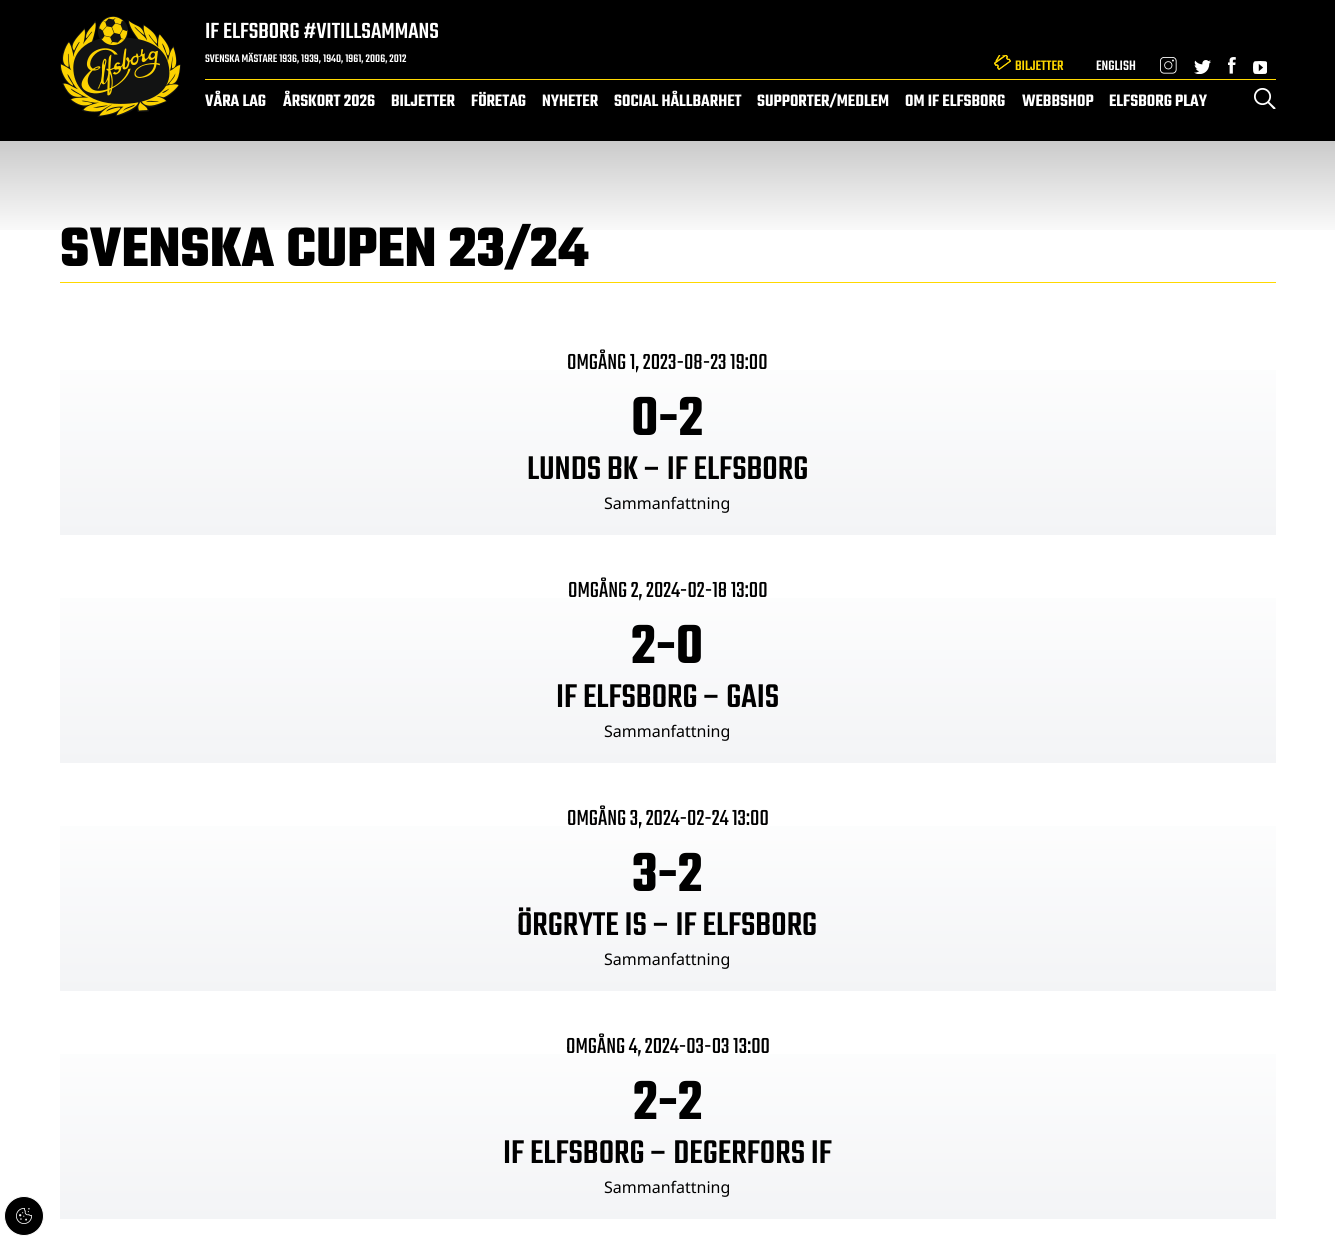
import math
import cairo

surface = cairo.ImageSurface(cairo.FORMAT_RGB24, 1335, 1240)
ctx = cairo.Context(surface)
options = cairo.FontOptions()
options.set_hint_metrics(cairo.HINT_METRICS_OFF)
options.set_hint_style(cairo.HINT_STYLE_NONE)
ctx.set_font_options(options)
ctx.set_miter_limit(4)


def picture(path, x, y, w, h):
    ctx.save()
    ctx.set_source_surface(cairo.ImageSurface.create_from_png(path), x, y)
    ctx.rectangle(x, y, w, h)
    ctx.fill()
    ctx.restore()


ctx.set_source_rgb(1, 1, 1)
ctx.paint()
ctx.set_source_rgb(0, 0, 0)
ctx.rectangle(0, 0, 1335, 141)
ctx.fill()
picture("img1.png", 60, 16, 121, 101)
ctx.select_font_face("Teko Medium")
ctx.set_font_size(24)
ctx.set_source_rgb(1, 1, 1)
ctx.move_to(205, 38)
ctx.show_text("IF ELFSBORG #VITILLSAMMANS")
ctx.set_source_rgb(1, 0.847, 0)
ctx.rectangle(205, 79, 1071, 1)
ctx.fill()
ctx.set_font_size(12)
ctx.set_source_rgb(1, 1, 1)
ctx.move_to(205, 62)
ctx.show_text("SVENSKA MÄSTARE 1936, 1939, 1940, 1961, 2006, 2012")
picture("img2.png", 994, 55, 17, 15)
ctx.set_font_size(15)
ctx.set_source_rgb(1, 0.847, 0)
ctx.move_to(1015, 70)
ctx.show_text("BILJETTER")
ctx.set_source_rgb(1, 1, 1)
ctx.move_to(1096, 70)
ctx.show_text("ENGLISH")
picture("img3.png", 1160, 57, 17, 17)
picture("img4.png", 1194, 60, 17, 14)
picture("img5.png", 1228, 57, 8, 17)
picture("img6.png", 1253, 61, 14, 13)
ctx.select_font_face("Teko SemiBold")
ctx.set_font_size(18)
ctx.move_to(205, 106)
ctx.show_text("VÅRA LAG")
ctx.move_to(283, 106)
ctx.show_text("ÅRSKORT 2026")
ctx.move_to(391, 106)
ctx.show_text("BILJETTER")
ctx.move_to(471, 106)
ctx.show_text("FÖRETAG")
ctx.move_to(542, 106)
ctx.show_text("NYHETER")
ctx.move_to(614, 106)
ctx.show_text("SOCIAL HÅLLBARHET")
ctx.move_to(757, 106)
ctx.show_text("SUPPORTER/MEDLEM")
ctx.move_to(905, 106)
ctx.show_text("OM IF ELFSBORG")
ctx.move_to(1022, 106)
ctx.show_text("WEBBSHOP")
ctx.move_to(1109, 106)
ctx.show_text("ELFSBORG PLAY")
picture("img7.png", 1254, 88, 22, 21)
ctx.select_font_face("Teko", cairo.FONT_SLANT_NORMAL, cairo.FONT_WEIGHT_BOLD)
ctx.set_font_size(60)
ctx.set_source_rgb(0, 0, 0)
ctx.move_to(60, 266)
ctx.show_text("SVENSKA CUPEN 23/24")
gradient = cairo.LinearGradient(668, 0, 668, 240)
gradient.add_color_stop_rgba(0, 0, 0, 0, 0.5)
gradient.add_color_stop_rgba(1, 0, 0, 0, 0)
ctx.set_source(gradient)
ctx.rectangle(0, 141, 1335, 89)
ctx.fill()
ctx.set_source_rgb(1, 0.847, 0)
ctx.rectangle(60, 282, 1216, 1)
ctx.fill()
gradient = cairo.LinearGradient(668, 535, 668, 327)
gradient.add_color_stop_rgba(0, 0.953, 0.957, 0.965, 1)
gradient.add_color_stop_rgba(1, 1, 1, 1, 1)
ctx.set_source(gradient)
ctx.rectangle(60, 370, 1216, 165)
ctx.fill()
ctx.select_font_face("Teko")
ctx.set_font_size(24)
ctx.set_source_rgb(0, 0, 0)
ctx.move_to(567, 369)
ctx.show_text("OMGÅNG 1, 2023-08-23 19:00")
ctx.select_font_face("Teko SemiBold")
ctx.set_font_size(60)
ctx.move_to(631, 435)
ctx.show_text("0-2")
ctx.select_font_face("Teko Medium")
ctx.set_font_size(36)
ctx.move_to(527, 479)
ctx.show_text("LUNDS BK – IF ELFSBORG")
ctx.select_font_face("Noto Sans")
ctx.set_font_size(16)
ctx.move_to(604, 509)
ctx.show_text("Sammanfattning")
gradient = cairo.LinearGradient(668, 763, 668, 555)
gradient.add_color_stop_rgba(0, 0.953, 0.957, 0.965, 1)
gradient.add_color_stop_rgba(1, 1, 1, 1, 1)
ctx.set_source(gradient)
ctx.rectangle(60, 598, 1216, 165)
ctx.fill()
ctx.select_font_face("Teko")
ctx.set_font_size(24)
ctx.set_source_rgb(0, 0, 0)
ctx.move_to(568, 597)
ctx.show_text("OMGÅNG 2, 2024-02-18 13:00")
ctx.select_font_face("Teko SemiBold")
ctx.set_font_size(60)
ctx.move_to(631, 663)
ctx.show_text("2-0")
ctx.select_font_face("Teko Medium")
ctx.set_font_size(36)
ctx.move_to(556, 707)
ctx.show_text("IF ELFSBORG – GAIS")
ctx.select_font_face("Noto Sans")
ctx.set_font_size(16)
ctx.move_to(604, 737)
ctx.show_text("Sammanfattning")
gradient = cairo.LinearGradient(668, 991, 668, 783)
gradient.add_color_stop_rgba(0, 0.953, 0.957, 0.965, 1)
gradient.add_color_stop_rgba(1, 1, 1, 1, 1)
ctx.set_source(gradient)
ctx.rectangle(60, 826, 1216, 165)
ctx.fill()
ctx.select_font_face("Teko")
ctx.set_font_size(24)
ctx.set_source_rgb(0, 0, 0)
ctx.move_to(567, 825)
ctx.show_text("OMGÅNG 3, 2024-02-24 13:00")
ctx.select_font_face("Teko SemiBold")
ctx.set_font_size(60)
ctx.move_to(632, 891)
ctx.show_text("3-2")
ctx.select_font_face("Teko Medium")
ctx.set_font_size(36)
ctx.move_to(517, 935)
ctx.show_text("ÖRGRYTE IS – IF ELFSBORG")
ctx.select_font_face("Noto Sans")
ctx.set_font_size(16)
ctx.move_to(604, 965)
ctx.show_text("Sammanfattning")
gradient = cairo.LinearGradient(668, 1219, 668, 1011)
gradient.add_color_stop_rgba(0, 0.953, 0.957, 0.965, 1)
gradient.add_color_stop_rgba(1, 1, 1, 1, 1)
ctx.set_source(gradient)
ctx.rectangle(60, 1054, 1216, 165)
ctx.fill()
ctx.select_font_face("Teko")
ctx.set_font_size(24)
ctx.set_source_rgb(0, 0, 0)
ctx.move_to(566, 1053)
ctx.show_text("OMGÅNG 4, 2024-03-03 13:00")
ctx.select_font_face("Teko SemiBold")
ctx.set_font_size(60)
ctx.move_to(633, 1119)
ctx.show_text("2-2")
ctx.select_font_face("Teko Medium")
ctx.set_font_size(36)
ctx.move_to(503, 1163)
ctx.show_text("IF ELFSBORG – DEGERFORS IF")
ctx.select_font_face("Noto Sans")
ctx.set_font_size(16)
ctx.move_to(604, 1193)
ctx.show_text("Sammanfattning")
ctx.new_path()
ctx.arc(24, 1216, 19.5, 0, 2 * math.pi)
ctx.fill_preserve()
ctx.set_source_rgb(1, 1, 1)
ctx.set_line_width(1)
ctx.stroke()
picture("img8.png", 16, 1208, 16, 16)
surface.write_to_png("page.png")
